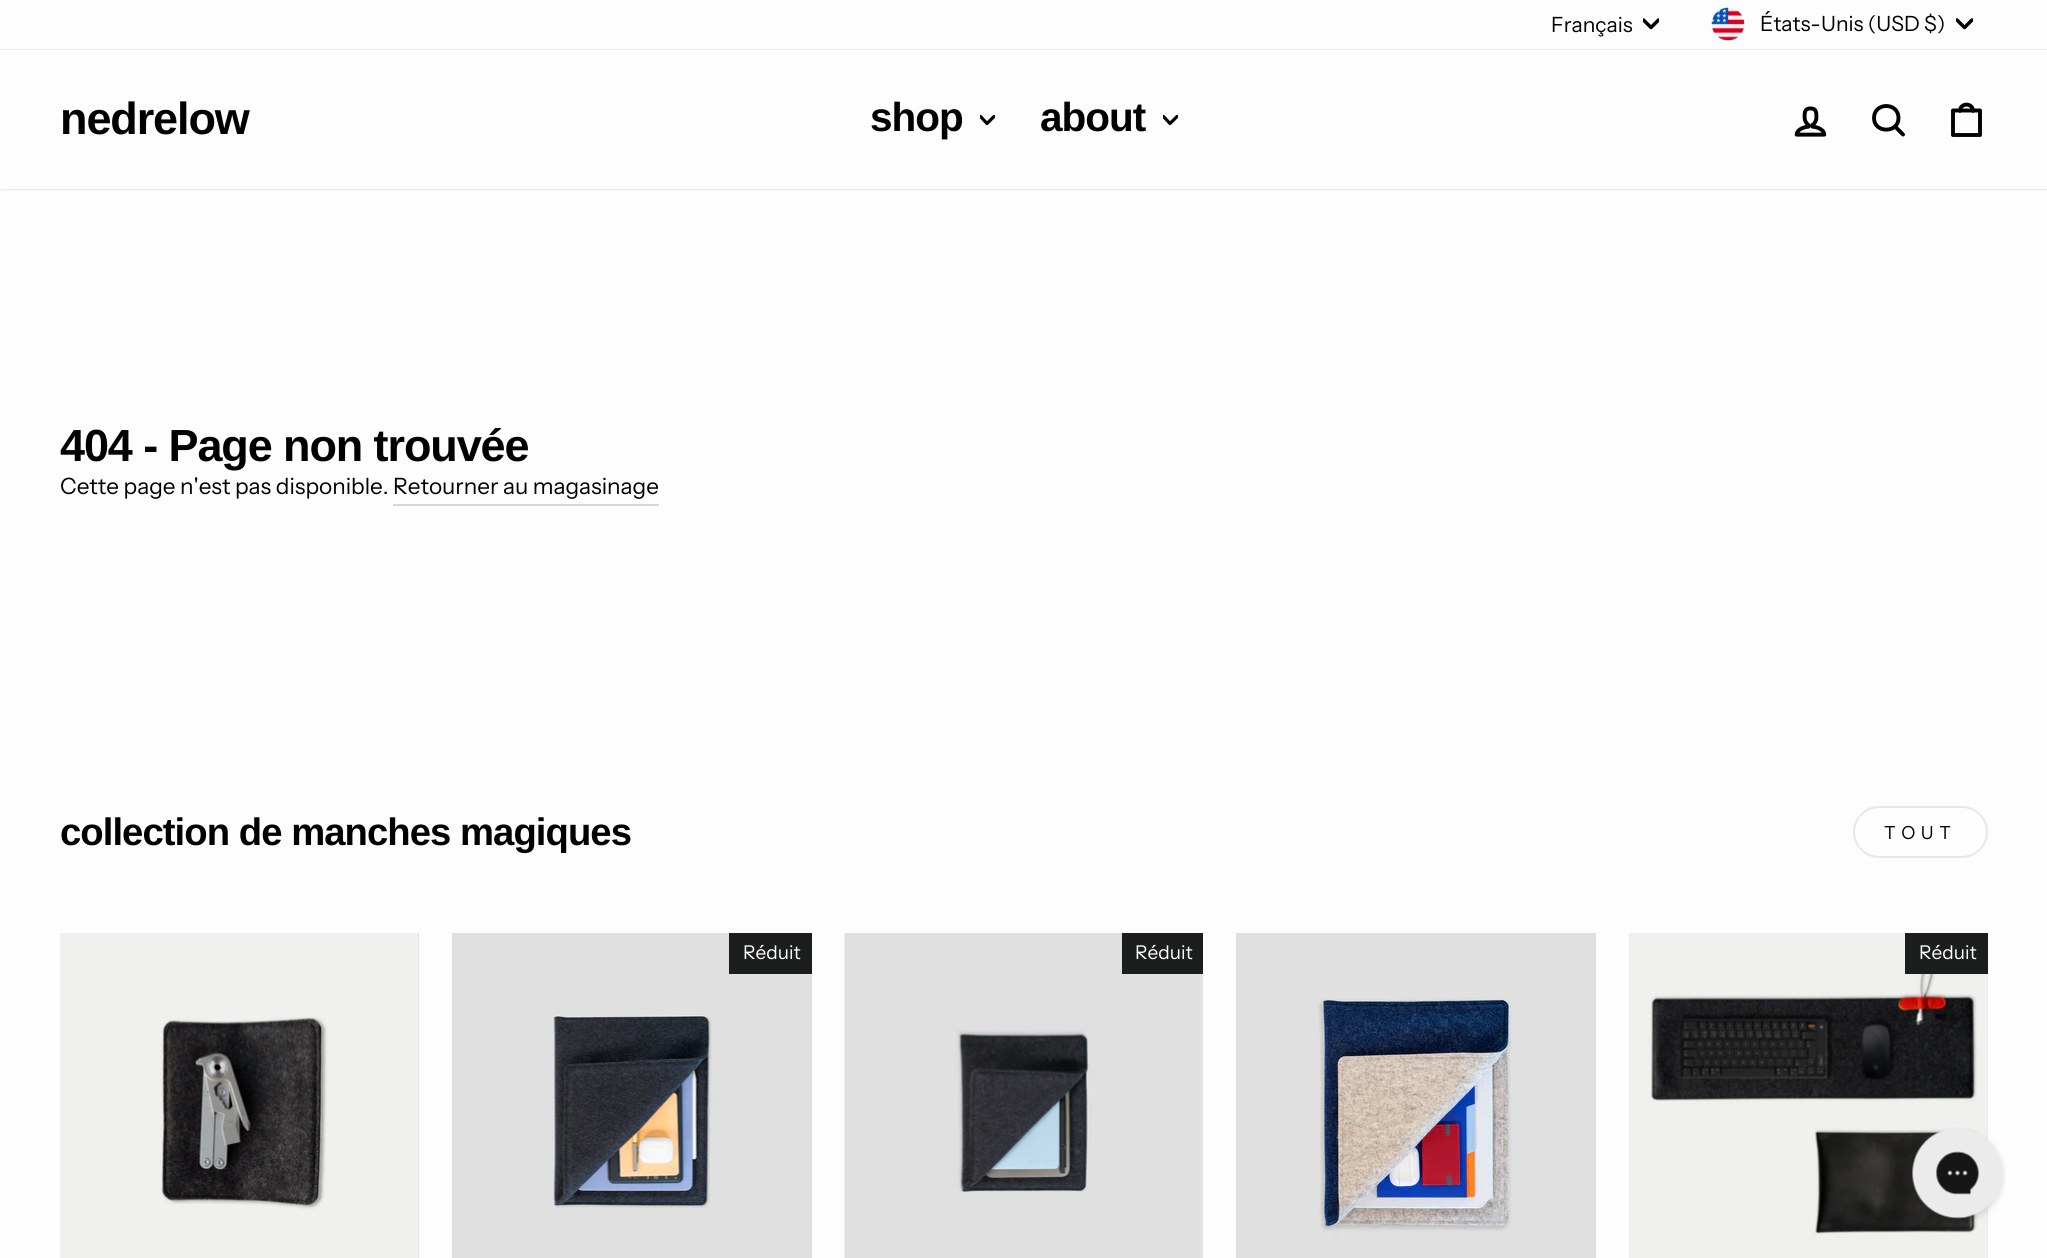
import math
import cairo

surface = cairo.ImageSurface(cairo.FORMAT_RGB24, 2047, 1258)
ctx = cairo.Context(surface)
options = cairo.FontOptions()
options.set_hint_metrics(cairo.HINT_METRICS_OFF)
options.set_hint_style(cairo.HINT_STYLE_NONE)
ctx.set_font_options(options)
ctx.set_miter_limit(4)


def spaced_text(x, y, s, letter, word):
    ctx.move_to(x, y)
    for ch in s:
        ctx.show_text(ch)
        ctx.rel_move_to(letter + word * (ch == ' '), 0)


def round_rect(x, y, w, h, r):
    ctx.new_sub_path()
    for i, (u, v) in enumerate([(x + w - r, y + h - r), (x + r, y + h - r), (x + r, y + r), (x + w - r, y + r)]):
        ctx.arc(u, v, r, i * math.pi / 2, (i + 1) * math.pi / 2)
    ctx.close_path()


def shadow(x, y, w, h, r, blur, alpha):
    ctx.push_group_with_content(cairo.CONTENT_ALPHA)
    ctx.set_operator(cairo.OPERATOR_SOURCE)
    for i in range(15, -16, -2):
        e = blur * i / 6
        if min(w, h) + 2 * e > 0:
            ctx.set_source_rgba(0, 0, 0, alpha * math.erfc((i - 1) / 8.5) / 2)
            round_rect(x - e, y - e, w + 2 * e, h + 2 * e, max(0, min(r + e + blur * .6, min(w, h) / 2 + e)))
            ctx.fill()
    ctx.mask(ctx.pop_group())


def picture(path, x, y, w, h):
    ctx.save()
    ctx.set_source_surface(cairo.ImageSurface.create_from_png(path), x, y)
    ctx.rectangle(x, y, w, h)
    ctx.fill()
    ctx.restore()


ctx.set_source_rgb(0.992, 0.992, 0.992)
ctx.paint()
ctx.select_font_face("Instrument Sans")
ctx.set_font_size(21)
ctx.set_source_rgb(0, 0, 0)
ctx.move_to(1551, 32)
ctx.show_text("Français")
ctx.save()
ctx.rectangle(1643, 17, 16, 16)
ctx.clip()
ctx.new_path()
ctx.move_to(1643.5, 20)
ctx.line_to(1651, 27.5)
ctx.line_to(1658.5, 20)
ctx.set_line_width(3.5)
ctx.set_line_cap(cairo.LINE_CAP_ROUND)
ctx.set_line_join(cairo.LINE_JOIN_ROUND)
ctx.stroke()
ctx.restore()
picture("img1.png", 1711, 7, 34, 34)
ctx.move_to(1760, 31)
ctx.show_text("États-Unis (USD $)")
ctx.save()
ctx.rectangle(1956, 17, 17, 16)
ctx.clip()
ctx.new_path()
ctx.move_to(1957, 20)
ctx.line_to(1964.5, 27.5)
ctx.line_to(1972, 20)
ctx.set_line_width(3.5)
ctx.set_line_cap(cairo.LINE_CAP_ROUND)
ctx.set_line_join(cairo.LINE_JOIN_ROUND)
ctx.stroke()
ctx.restore()
ctx.save()
ctx.set_fill_rule(cairo.FILL_RULE_EVEN_ODD)
ctx.new_path()
ctx.move_to(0, 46)
ctx.line_to(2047, 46)
ctx.line_to(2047, 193)
ctx.line_to(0, 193)
ctx.close_path()
ctx.move_to(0, 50)
ctx.line_to(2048, 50)
ctx.line_to(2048, 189)
ctx.line_to(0, 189)
ctx.close_path()
ctx.clip()
ctx.set_source_rgb(0, 0, 0)
shadow(0, 50, 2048, 139, 0, 1, 0.2)
ctx.restore()
ctx.select_font_face("Liberation Sans", cairo.FONT_SLANT_NORMAL, cairo.FONT_WEIGHT_BOLD)
ctx.set_font_size(45)
spaced_text(60, 134, "nedrelow", -1.1, 0)
ctx.set_font_size(40.5)
spaced_text(870, 131, "shop", -1, 0)
ctx.save()
ctx.rectangle(980, 113, 15, 15)
ctx.clip()
ctx.new_path()
ctx.move_to(980.5, 116.5)
ctx.line_to(987, 123.5)
ctx.line_to(994, 116.5)
ctx.set_line_width(3.2)
ctx.set_line_cap(cairo.LINE_CAP_ROUND)
ctx.set_line_join(cairo.LINE_JOIN_ROUND)
ctx.stroke()
ctx.restore()
spaced_text(1040, 131, "about", -1, 0)
ctx.save()
ctx.rectangle(1163, 113, 15, 15)
ctx.clip()
ctx.new_path()
ctx.move_to(1163.5, 116.5)
ctx.line_to(1170, 123.5)
ctx.line_to(1177, 116.5)
ctx.set_line_width(3.2)
ctx.set_line_cap(cairo.LINE_CAP_ROUND)
ctx.set_line_join(cairo.LINE_JOIN_ROUND)
ctx.stroke()
ctx.restore()
picture("img2.png", 1794, 106, 33, 31)
ctx.new_path()
ctx.move_to(1898.5, 118)
ctx.curve_to(1898.5, 133.5, 1874, 133.5, 1874, 118)
ctx.curve_to(1874, 102, 1898.5, 102, 1898.5, 118)
ctx.close_path()
ctx.move_to(1903, 134.5)
ctx.line_to(1895, 126.5)
ctx.set_line_width(3.9)
ctx.set_line_cap(cairo.LINE_CAP_ROUND)
ctx.set_line_join(cairo.LINE_JOIN_ROUND)
ctx.stroke()
ctx.new_path()
ctx.move_to(1953, 110.5)
ctx.line_to(1980, 110.5)
ctx.line_to(1980, 135)
ctx.line_to(1953, 135)
ctx.close_path()
ctx.move_to(1960, 111)
ctx.curve_to(1960, 102.5, 1973, 102.5, 1973, 111)
ctx.stroke()
ctx.set_font_size(45)
spaced_text(60, 461, "404 - Page non trouvée", -1.1, 0)
ctx.select_font_face("Instrument Sans")
ctx.set_font_size(22.5)
ctx.move_to(60, 494)
ctx.show_text("Cette page n'est pas disponible. Retourner au magasinage")
ctx.set_source_rgb(0.843, 0.843, 0.843)
ctx.rectangle(393, 504, 266, 2)
ctx.fill()
ctx.select_font_face("Liberation Sans", cairo.FONT_SLANT_NORMAL, cairo.FONT_WEIGHT_BOLD)
ctx.set_font_size(38.25)
ctx.set_source_rgb(0, 0, 0)
spaced_text(60, 845, "collection de manches magiques", -0.95, 0)
round_rect(1854, 807, 133, 50, 25)
ctx.set_source_rgb(0.91, 0.91, 0.882)
ctx.set_line_width(2)
ctx.set_line_cap(cairo.LINE_CAP_BUTT)
ctx.set_line_join(cairo.LINE_JOIN_MITER)
ctx.stroke()
ctx.select_font_face("Instrument Sans")
ctx.set_font_size(18)
ctx.set_source_rgb(0, 0, 0)
spaced_text(1884, 839, "TOUT", 5.5, 0)
ctx.set_source_rgb(0.898, 0.898, 0.898)
ctx.rectangle(418, 933, 1, 325)
ctx.fill()
picture("img3.png", 60, 933, 358, 325)
picture("img4.png", 452, 933, 360, 325)
ctx.set_source_rgb(0.11, 0.114, 0.114)
ctx.rectangle(729, 933, 83, 41)
ctx.fill()
ctx.set_font_size(19)
ctx.set_source_rgb(1, 1, 1)
ctx.move_to(743, 959)
ctx.show_text("Réduit")
ctx.set_source_rgb(0.898, 0.898, 0.898)
ctx.rectangle(1202, 974, 1, 284)
ctx.fill()
picture("img5.png", 844, 933, 358, 325)
ctx.set_source_rgb(0.11, 0.114, 0.114)
ctx.rectangle(1122, 933, 81, 41)
ctx.fill()
ctx.set_source_rgb(1, 1, 1)
ctx.move_to(1135, 959)
ctx.show_text("Réduit")
picture("img6.png", 1236, 933, 360, 325)
ctx.set_source_rgb(0.898, 0.898, 0.898)
ctx.rectangle(1629, 933, 359, 325)
ctx.fill()
picture("img7.png", 1629, 933, 359, 325)
ctx.set_source_rgb(0.11, 0.114, 0.114)
ctx.rectangle(1905, 933, 83, 41)
ctx.fill()
ctx.set_source_rgb(1, 1, 1)
ctx.move_to(1919, 959)
ctx.show_text("Réduit")
picture("img8.png", 1912, 1127, 94, 94)
surface.write_to_png("page.png")
